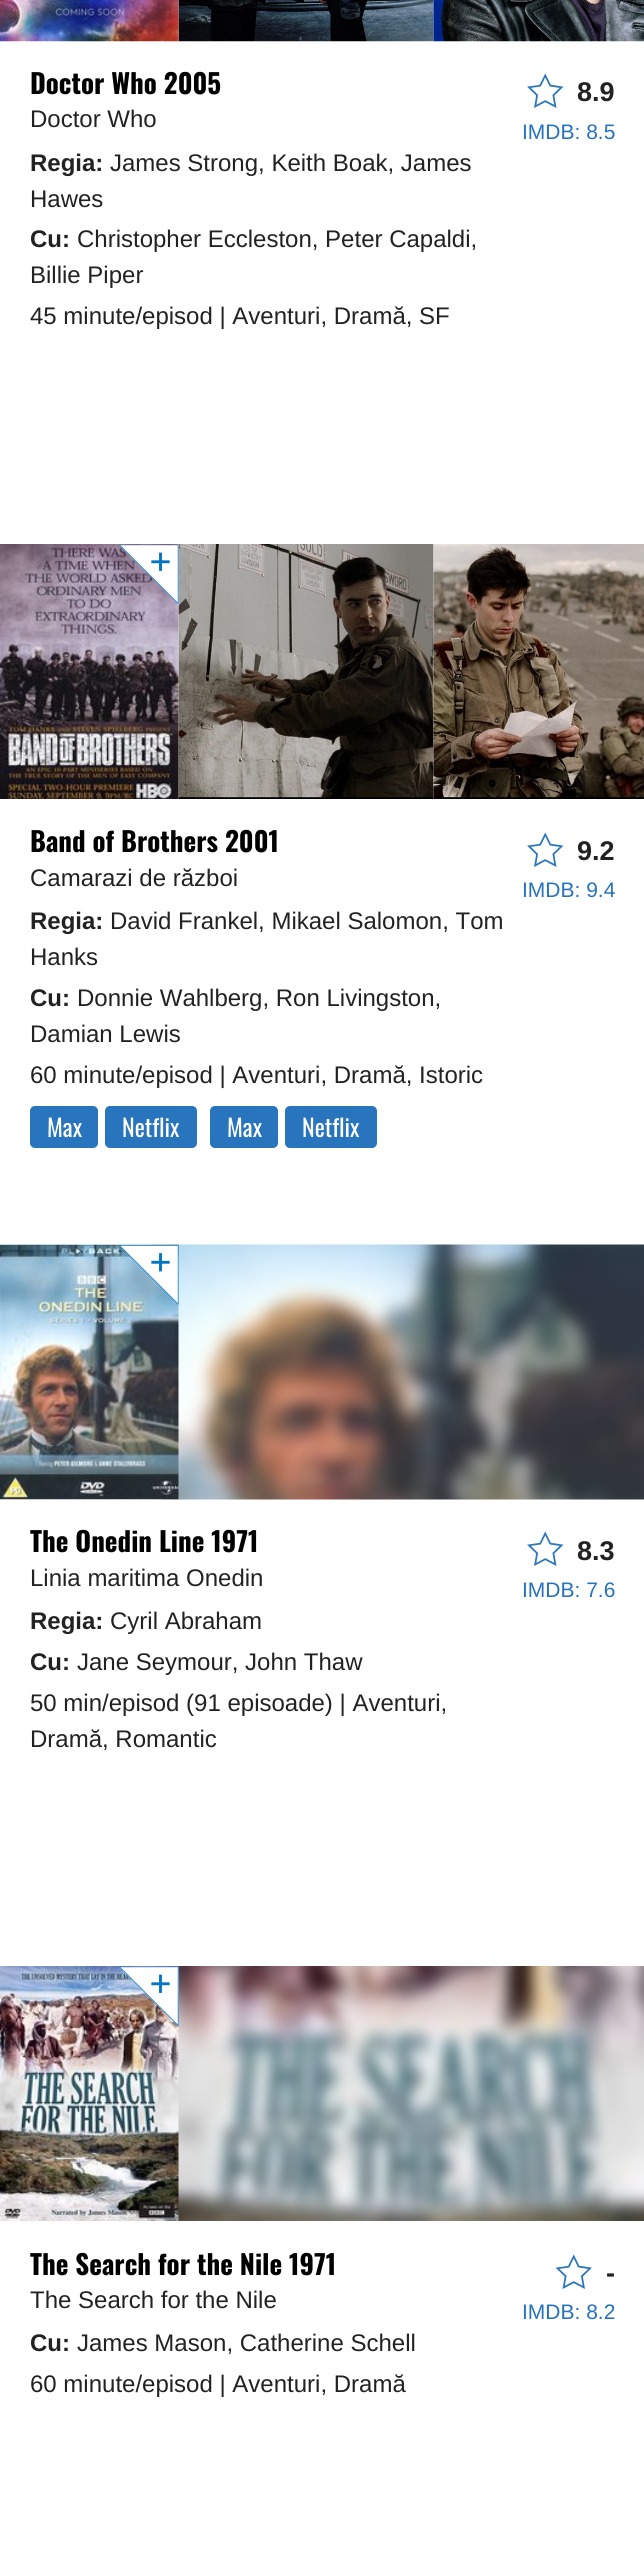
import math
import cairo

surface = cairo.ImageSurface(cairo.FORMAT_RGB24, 644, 2569)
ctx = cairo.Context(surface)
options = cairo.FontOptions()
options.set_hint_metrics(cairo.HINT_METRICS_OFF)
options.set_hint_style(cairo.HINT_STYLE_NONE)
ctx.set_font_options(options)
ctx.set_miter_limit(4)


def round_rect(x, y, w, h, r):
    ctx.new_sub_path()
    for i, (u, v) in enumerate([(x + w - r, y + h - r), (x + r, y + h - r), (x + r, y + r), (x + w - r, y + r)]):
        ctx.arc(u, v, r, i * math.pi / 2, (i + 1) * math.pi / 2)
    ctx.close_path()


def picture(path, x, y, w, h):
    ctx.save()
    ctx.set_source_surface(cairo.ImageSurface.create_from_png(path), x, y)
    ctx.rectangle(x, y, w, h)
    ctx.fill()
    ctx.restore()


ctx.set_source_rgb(1, 1, 1)
ctx.paint()
picture("img2.png", 178, 0, 256, 42)
picture("img1.png", 0, 0, 179, 42)
picture("img3.png", 433, 0, 211, 42)
ctx.select_font_face("Oswald", cairo.FONT_SLANT_NORMAL, cairo.FONT_WEIGHT_BOLD)
ctx.set_font_size(27)
ctx.set_source_rgb(0, 0, 0)
ctx.move_to(30, 94)
ctx.show_text("Doctor Who 2005")
ctx.select_font_face("Liberation Sans")
ctx.set_font_size(24)
ctx.set_source_rgb(0.133, 0.133, 0.133)
ctx.move_to(30, 127)
ctx.show_text("Doctor Who")
ctx.select_font_face("Liberation Sans", cairo.FONT_SLANT_NORMAL, cairo.FONT_WEIGHT_BOLD)
ctx.move_to(30, 171)
ctx.show_text("Regia:")
ctx.select_font_face("Liberation Sans")
ctx.move_to(110, 171)
ctx.show_text("James Strong, Keith Boak, James")
ctx.move_to(30, 207)
ctx.show_text("Hawes")
ctx.select_font_face("Liberation Sans", cairo.FONT_SLANT_NORMAL, cairo.FONT_WEIGHT_BOLD)
ctx.move_to(30, 247)
ctx.show_text("Cu:")
ctx.select_font_face("Liberation Sans")
ctx.move_to(77, 247)
ctx.show_text("Christopher Eccleston, Peter Capaldi,")
ctx.move_to(30, 283)
ctx.show_text("Billie Piper")
ctx.move_to(30, 324)
ctx.show_text("45 minute/episod | Aventuri, Dramă, SF")
picture("img4.png", 527, 73, 37, 35)
ctx.select_font_face("Liberation Sans", cairo.FONT_SLANT_NORMAL, cairo.FONT_WEIGHT_BOLD)
ctx.set_font_size(27)
ctx.move_to(577, 101)
ctx.show_text("8.9")
ctx.select_font_face("Liberation Sans")
ctx.set_font_size(21)
ctx.set_source_rgb(0.149, 0.447, 0.741)
ctx.move_to(522, 139)
ctx.show_text("IMDB: 8.5")
picture("img7.png", 178, 544, 256, 255)
picture("img5.png", 0, 544, 179, 255)
picture("img6.png", 119, 545, 60, 60)
picture("img8.png", 433, 544, 211, 255)
ctx.select_font_face("Oswald", cairo.FONT_SLANT_NORMAL, cairo.FONT_WEIGHT_BOLD)
ctx.set_font_size(27)
ctx.set_source_rgb(0, 0, 0)
ctx.move_to(30, 852)
ctx.show_text("Band of Brothers 2001")
ctx.select_font_face("Liberation Sans")
ctx.set_font_size(24)
ctx.set_source_rgb(0.133, 0.133, 0.133)
ctx.move_to(30, 886)
ctx.show_text("Camarazi de război")
ctx.select_font_face("Liberation Sans", cairo.FONT_SLANT_NORMAL, cairo.FONT_WEIGHT_BOLD)
ctx.move_to(30, 929)
ctx.show_text("Regia:")
ctx.select_font_face("Liberation Sans")
ctx.move_to(110, 929)
ctx.show_text("David Frankel, Mikael Salomon, Tom")
ctx.move_to(30, 965)
ctx.show_text("Hanks")
ctx.select_font_face("Liberation Sans", cairo.FONT_SLANT_NORMAL, cairo.FONT_WEIGHT_BOLD)
ctx.move_to(30, 1006)
ctx.show_text("Cu:")
ctx.select_font_face("Liberation Sans")
ctx.move_to(77, 1006)
ctx.show_text("Donnie Wahlberg, Ron Livingston,")
ctx.move_to(30, 1042)
ctx.show_text("Damian Lewis")
ctx.move_to(30, 1083)
ctx.show_text("60 minute/episod | Aventuri, Dramă, Istoric")
ctx.set_source_rgb(0.157, 0.459, 0.741)
round_rect(30, 1106, 68, 42, 5)
ctx.fill()
ctx.select_font_face("Oswald")
ctx.set_source_rgb(1, 1, 1)
ctx.move_to(47, 1137)
ctx.show_text("Max")
ctx.set_source_rgb(0.157, 0.459, 0.741)
round_rect(105, 1106, 92, 42, 5)
ctx.fill()
ctx.set_source_rgb(1, 1, 1)
ctx.move_to(122, 1137)
ctx.show_text("Netflix")
ctx.set_source_rgb(0.157, 0.459, 0.741)
round_rect(210, 1106, 68, 42, 5)
ctx.fill()
ctx.set_source_rgb(1, 1, 1)
ctx.move_to(227, 1137)
ctx.show_text("Max")
ctx.set_source_rgb(0.157, 0.459, 0.741)
round_rect(285, 1106, 92, 42, 5)
ctx.fill()
ctx.set_source_rgb(1, 1, 1)
ctx.move_to(302, 1137)
ctx.show_text("Netflix")
picture("img4.png", 527, 832, 37, 35)
ctx.select_font_face("Liberation Sans", cairo.FONT_SLANT_NORMAL, cairo.FONT_WEIGHT_BOLD)
ctx.set_font_size(27)
ctx.set_source_rgb(0.133, 0.133, 0.133)
ctx.move_to(577, 860)
ctx.show_text("9.2")
ctx.select_font_face("Liberation Sans")
ctx.set_font_size(21)
ctx.set_source_rgb(0.149, 0.447, 0.741)
ctx.move_to(522, 897)
ctx.show_text("IMDB: 9.4")
picture("img11.png", 152, 1244, 492, 256)
picture("img9.png", 0, 1244, 179, 256)
picture("img10.png", 119, 1245, 60, 60)
ctx.select_font_face("Oswald", cairo.FONT_SLANT_NORMAL, cairo.FONT_WEIGHT_BOLD)
ctx.set_font_size(27)
ctx.set_source_rgb(0, 0, 0)
ctx.move_to(30, 1552)
ctx.show_text("The Onedin Line 1971")
ctx.select_font_face("Liberation Sans")
ctx.set_font_size(24)
ctx.set_source_rgb(0.133, 0.133, 0.133)
ctx.move_to(30, 1586)
ctx.show_text("Linia maritima Onedin")
ctx.select_font_face("Liberation Sans", cairo.FONT_SLANT_NORMAL, cairo.FONT_WEIGHT_BOLD)
ctx.move_to(30, 1629)
ctx.show_text("Regia:")
ctx.select_font_face("Liberation Sans")
ctx.move_to(110, 1629)
ctx.show_text("Cyril Abraham")
ctx.select_font_face("Liberation Sans", cairo.FONT_SLANT_NORMAL, cairo.FONT_WEIGHT_BOLD)
ctx.move_to(30, 1670)
ctx.show_text("Cu:")
ctx.select_font_face("Liberation Sans")
ctx.move_to(77, 1670)
ctx.show_text("Jane Seymour, John Thaw")
ctx.move_to(30, 1711)
ctx.show_text("50 min/episod (91 episoade) | Aventuri,")
ctx.move_to(30, 1747)
ctx.show_text("Dramă, Romantic")
picture("img4.png", 527, 1531, 37, 35)
ctx.select_font_face("Liberation Sans", cairo.FONT_SLANT_NORMAL, cairo.FONT_WEIGHT_BOLD)
ctx.set_font_size(27)
ctx.move_to(577, 1560)
ctx.show_text("8.3")
ctx.select_font_face("Liberation Sans")
ctx.set_font_size(21)
ctx.set_source_rgb(0.149, 0.447, 0.741)
ctx.move_to(522, 1597)
ctx.show_text("IMDB: 7.6")
picture("img14.png", 178, 1966, 466, 255)
picture("img12.png", 0, 1966, 179, 255)
picture("img13.png", 119, 1967, 60, 60)
ctx.select_font_face("Oswald", cairo.FONT_SLANT_NORMAL, cairo.FONT_WEIGHT_BOLD)
ctx.set_font_size(27)
ctx.set_source_rgb(0, 0, 0)
ctx.move_to(30, 2275)
ctx.show_text("The Search for the Nile 1971")
ctx.select_font_face("Liberation Sans")
ctx.set_font_size(24)
ctx.set_source_rgb(0.133, 0.133, 0.133)
ctx.move_to(30, 2308)
ctx.show_text("The Search for the Nile")
ctx.select_font_face("Liberation Sans", cairo.FONT_SLANT_NORMAL, cairo.FONT_WEIGHT_BOLD)
ctx.move_to(30, 2351)
ctx.show_text("Cu:")
ctx.select_font_face("Liberation Sans")
ctx.move_to(77, 2351)
ctx.show_text("James Mason, Catherine Schell")
ctx.move_to(30, 2392)
ctx.show_text("60 minute/episod | Aventuri, Dramă")
picture("img15.png", 555, 2254, 37, 35)
ctx.select_font_face("Liberation Sans", cairo.FONT_SLANT_NORMAL, cairo.FONT_WEIGHT_BOLD)
ctx.set_font_size(27)
ctx.move_to(606, 2282)
ctx.show_text("-")
ctx.select_font_face("Liberation Sans")
ctx.set_font_size(21)
ctx.set_source_rgb(0.149, 0.447, 0.741)
ctx.move_to(522, 2319)
ctx.show_text("IMDB: 8.2")
surface.write_to_png("page.png")
